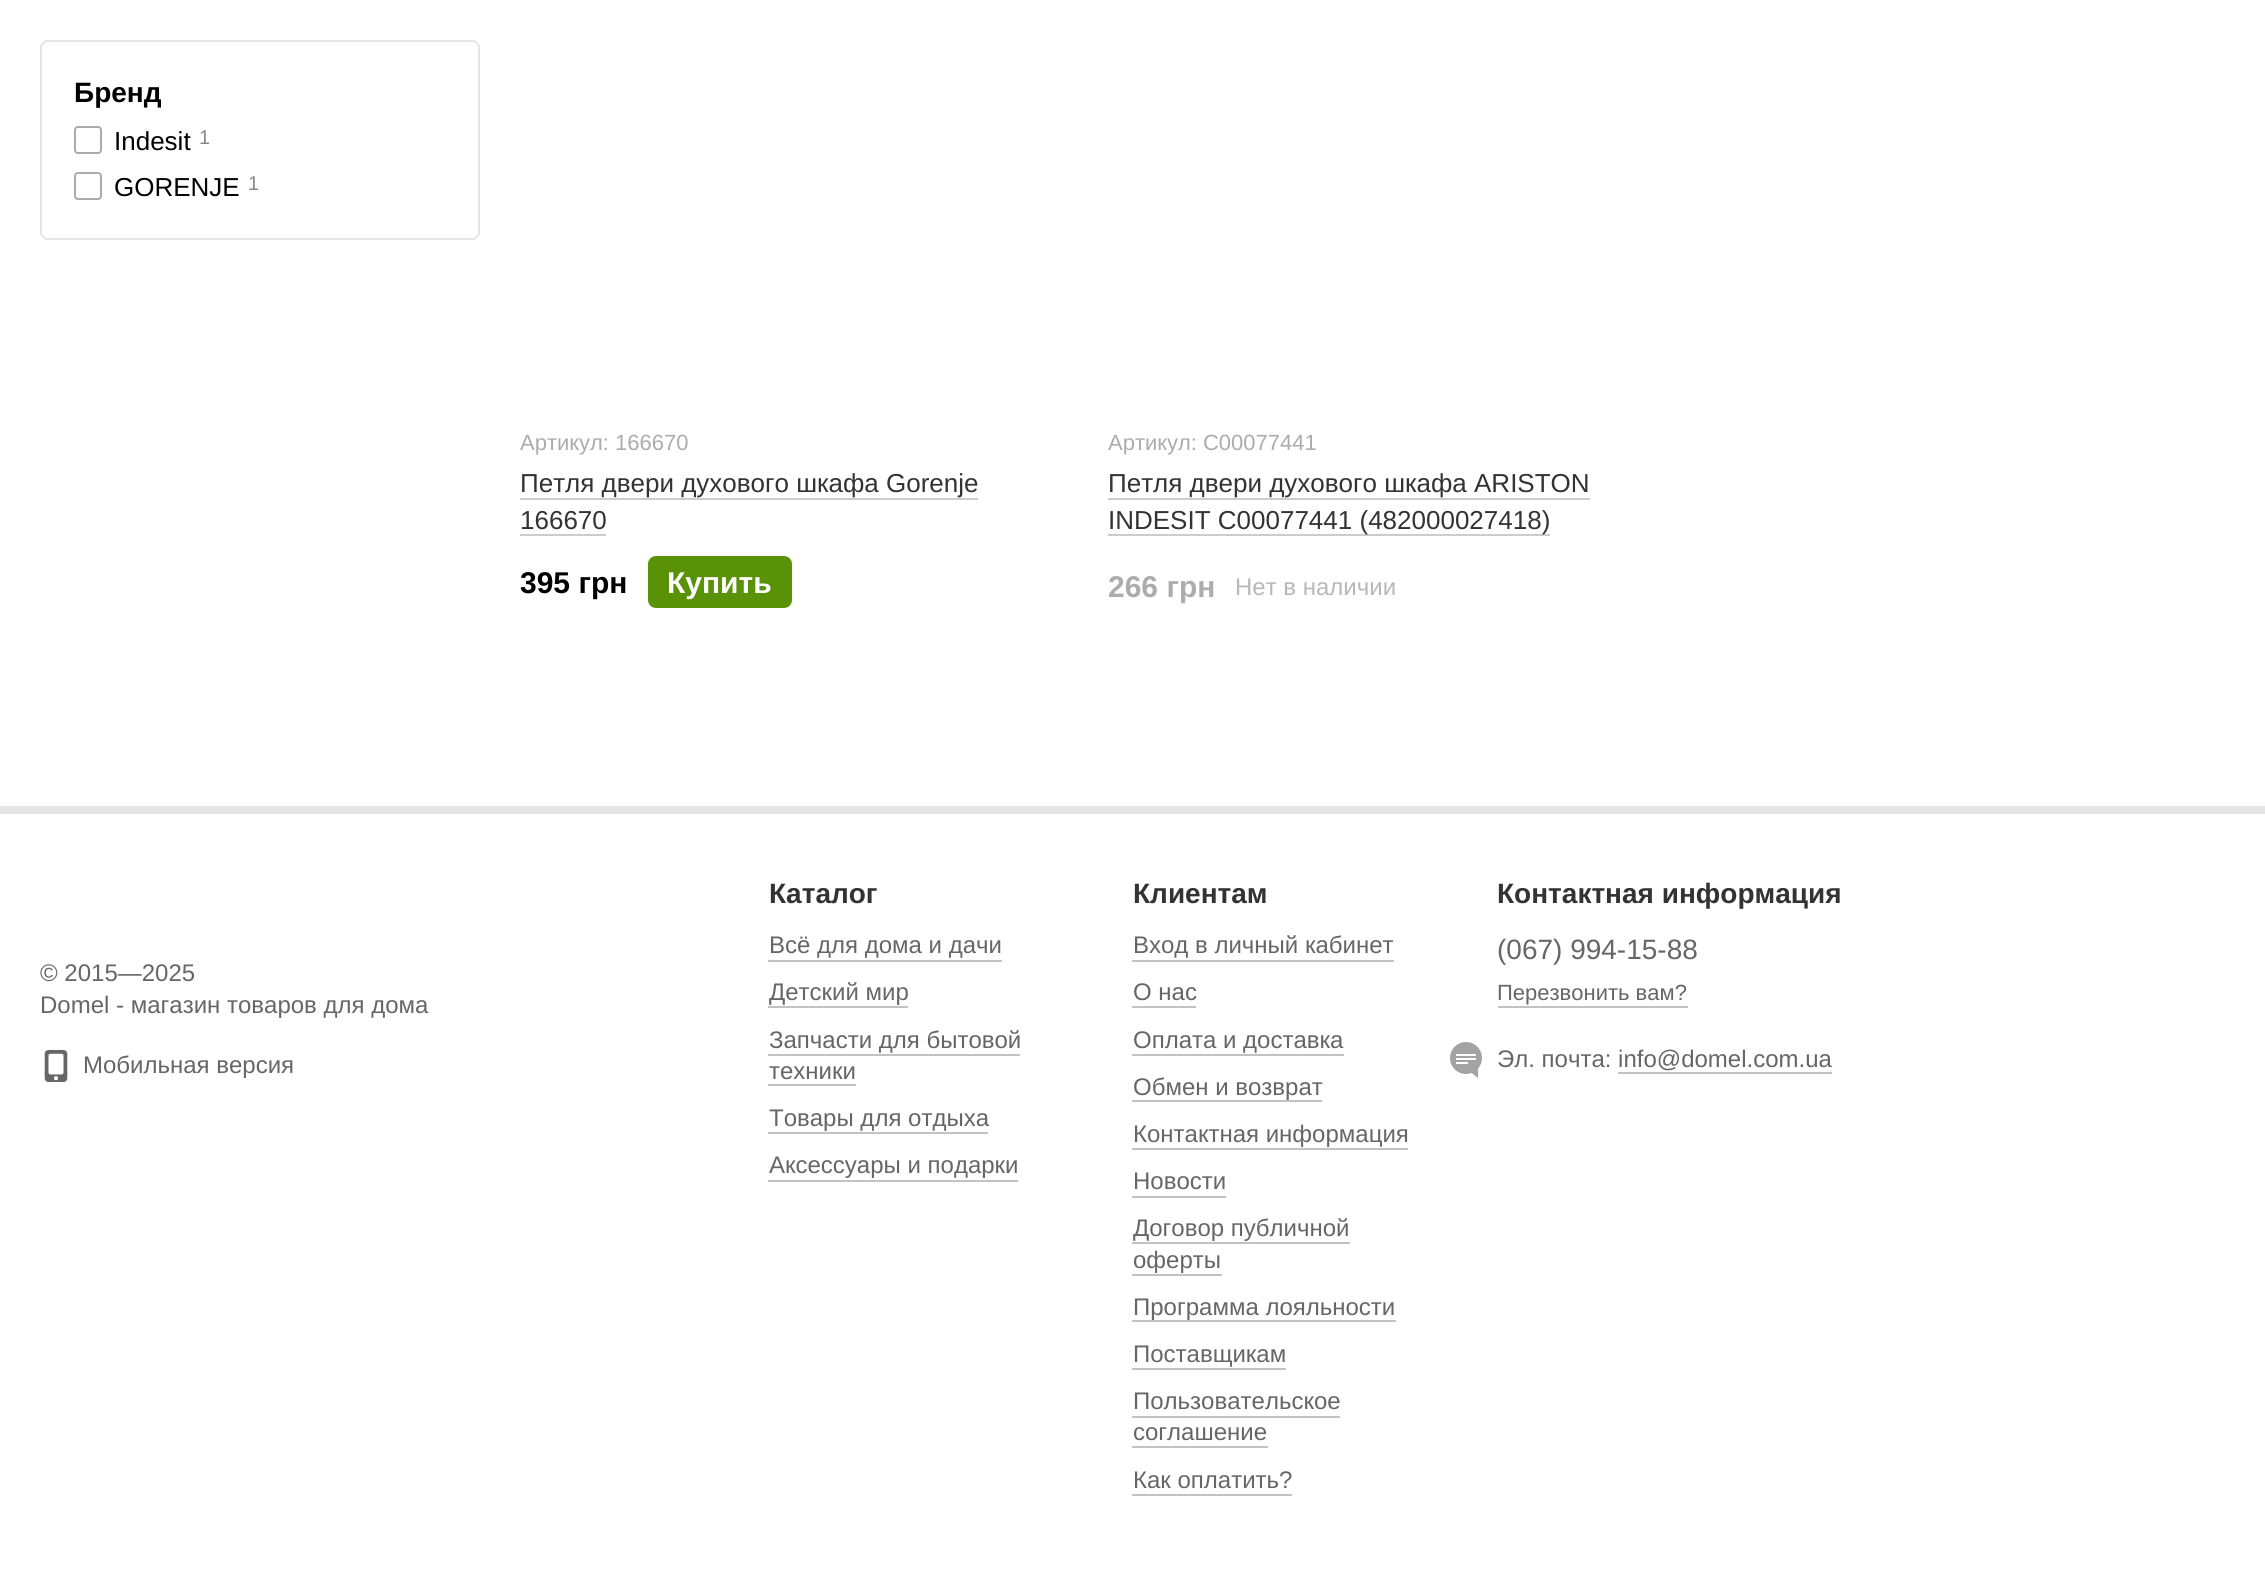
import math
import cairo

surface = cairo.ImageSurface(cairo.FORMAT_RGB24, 2265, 1571)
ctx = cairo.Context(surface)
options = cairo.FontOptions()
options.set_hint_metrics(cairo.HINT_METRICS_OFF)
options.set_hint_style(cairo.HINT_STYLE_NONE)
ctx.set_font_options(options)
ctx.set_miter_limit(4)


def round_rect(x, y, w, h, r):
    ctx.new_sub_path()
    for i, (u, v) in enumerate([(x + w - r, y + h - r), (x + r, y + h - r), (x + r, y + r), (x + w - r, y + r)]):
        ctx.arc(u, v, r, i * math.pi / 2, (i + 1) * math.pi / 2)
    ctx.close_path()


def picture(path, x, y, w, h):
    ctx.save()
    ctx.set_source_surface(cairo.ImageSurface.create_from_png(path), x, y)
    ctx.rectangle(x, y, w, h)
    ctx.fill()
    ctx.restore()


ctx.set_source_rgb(1, 1, 1)
ctx.paint()
round_rect(41, 41, 438, 198, 7)
ctx.set_source_rgb(0.898, 0.898, 0.898)
ctx.stroke()
ctx.select_font_face("Liberation Sans", cairo.FONT_SLANT_NORMAL, cairo.FONT_WEIGHT_BOLD)
ctx.set_font_size(28)
ctx.set_source_rgb(0, 0, 0)
ctx.move_to(74, 102)
ctx.show_text("Бренд")
round_rect(75, 127, 26, 26, 3)
ctx.set_source_rgb(0.671, 0.671, 0.671)
ctx.stroke()
ctx.select_font_face("Liberation Sans")
ctx.set_font_size(26)
ctx.set_source_rgb(0, 0, 0)
ctx.move_to(114, 150)
ctx.show_text("Indesit")
ctx.set_font_size(20)
ctx.set_source_rgb(0.537, 0.537, 0.537)
ctx.move_to(199, 144)
ctx.show_text("1")
round_rect(75, 173, 26, 26, 3)
ctx.set_source_rgb(0.671, 0.671, 0.671)
ctx.stroke()
ctx.set_font_size(26)
ctx.set_source_rgb(0, 0, 0)
ctx.move_to(114, 196)
ctx.show_text("GORENJE")
ctx.set_font_size(20)
ctx.set_source_rgb(0.537, 0.537, 0.537)
ctx.move_to(248, 190)
ctx.show_text("1")
ctx.set_font_size(22)
ctx.set_source_rgb(0.675, 0.675, 0.675)
ctx.move_to(520, 450)
ctx.show_text("Артикул: 166670")
ctx.set_font_size(26)
ctx.set_source_rgb(0.2, 0.2, 0.2)
ctx.move_to(520, 492)
ctx.show_text("Петля двери духового шкафа Gorenje")
ctx.set_source_rgb(0.8, 0.8, 0.8)
ctx.rectangle(520, 498, 458, 2)
ctx.fill()
ctx.set_source_rgb(0.2, 0.2, 0.2)
ctx.move_to(520, 529)
ctx.show_text("166670")
ctx.set_source_rgb(0.8, 0.8, 0.8)
ctx.rectangle(520, 534, 86, 2)
ctx.fill()
ctx.select_font_face("Liberation Sans", cairo.FONT_SLANT_NORMAL, cairo.FONT_WEIGHT_BOLD)
ctx.set_font_size(30)
ctx.set_source_rgb(0, 0, 0)
ctx.move_to(520, 593)
ctx.show_text("395 грн")
gradient = cairo.LinearGradient(624, 582, 648, 582)
gradient.add_color_stop_rgba(0, 1, 1, 1, 0)
gradient.add_color_stop_rgba(1, 1, 1, 1, 1)
ctx.set_source(gradient)
ctx.rectangle(625, 577, 1, 16)
ctx.fill()
ctx.set_source_rgb(0.353, 0.573, 0.031)
round_rect(648, 556, 144, 52, 8)
ctx.fill()
ctx.set_source_rgb(1, 1, 1)
ctx.move_to(667, 593)
ctx.show_text("Купить")
ctx.select_font_face("Liberation Sans")
ctx.set_font_size(22)
ctx.set_source_rgb(0.675, 0.675, 0.675)
ctx.move_to(1108, 450)
ctx.show_text("Артикул: C00077441")
ctx.set_font_size(26)
ctx.set_source_rgb(0.2, 0.2, 0.2)
ctx.move_to(1108, 492)
ctx.show_text("Петля двери духового шкафа ARISTON")
ctx.set_source_rgb(0.8, 0.8, 0.8)
ctx.rectangle(1108, 498, 482, 2)
ctx.fill()
ctx.rectangle(1108, 534, 442, 2)
ctx.fill()
ctx.set_source_rgb(0.2, 0.2, 0.2)
ctx.move_to(1108, 529)
ctx.show_text("INDESIT C00077441 (482000027418)")
ctx.select_font_face("Liberation Sans", cairo.FONT_SLANT_NORMAL, cairo.FONT_WEIGHT_BOLD)
ctx.set_font_size(30)
ctx.set_source_rgb(0.675, 0.675, 0.675)
ctx.move_to(1108, 597)
ctx.show_text("266 грн")
ctx.select_font_face("Liberation Sans")
ctx.set_font_size(24)
ctx.set_source_rgb(0.722, 0.722, 0.722)
ctx.move_to(1235, 595)
ctx.show_text("Нет в наличии")
ctx.set_source_rgb(0.898, 0.898, 0.898)
ctx.rectangle(0, 806, 2265, 8)
ctx.fill()
ctx.set_source_rgb(0.4, 0.4, 0.4)
ctx.move_to(40, 981)
ctx.show_text("© 2015—2025")
ctx.move_to(40, 1013)
ctx.show_text("Domel - магазин товаров для дома")
picture("img1.png", 44, 1050, 24, 32)
ctx.move_to(83, 1073)
ctx.show_text("Мобильная версия")
ctx.select_font_face("Liberation Sans", cairo.FONT_SLANT_NORMAL, cairo.FONT_WEIGHT_BOLD)
ctx.set_font_size(28)
ctx.set_source_rgb(0.2, 0.2, 0.2)
ctx.move_to(769, 903)
ctx.show_text("Каталог")
ctx.select_font_face("Liberation Sans")
ctx.set_font_size(24)
ctx.set_source_rgb(0.4, 0.4, 0.4)
ctx.move_to(769, 953)
ctx.show_text("Всё для дома и дачи")
ctx.set_source_rgb(0.761, 0.761, 0.761)
ctx.rectangle(768, 960, 234, 2)
ctx.fill()
ctx.set_source_rgb(0.4, 0.4, 0.4)
ctx.move_to(769, 1000)
ctx.show_text("Детский мир")
ctx.set_source_rgb(0.761, 0.761, 0.761)
ctx.rectangle(768, 1006, 140, 2)
ctx.fill()
ctx.set_source_rgb(0.4, 0.4, 0.4)
ctx.move_to(769, 1048)
ctx.show_text("Запчасти для бытовой")
ctx.set_source_rgb(0.761, 0.761, 0.761)
ctx.rectangle(768, 1054, 252, 2)
ctx.fill()
ctx.set_source_rgb(0.4, 0.4, 0.4)
ctx.move_to(769, 1079)
ctx.show_text("техники")
ctx.set_source_rgb(0.761, 0.761, 0.761)
ctx.rectangle(768, 1084, 88, 2)
ctx.fill()
ctx.set_source_rgb(0.4, 0.4, 0.4)
ctx.move_to(769, 1126)
ctx.show_text("Товары для отдыха")
ctx.set_source_rgb(0.761, 0.761, 0.761)
ctx.rectangle(768, 1132, 220, 2)
ctx.fill()
ctx.set_source_rgb(0.4, 0.4, 0.4)
ctx.move_to(769, 1173)
ctx.show_text("Аксессуары и подарки")
ctx.set_source_rgb(0.761, 0.761, 0.761)
ctx.rectangle(768, 1180, 250, 2)
ctx.fill()
ctx.select_font_face("Liberation Sans", cairo.FONT_SLANT_NORMAL, cairo.FONT_WEIGHT_BOLD)
ctx.set_font_size(28)
ctx.set_source_rgb(0.2, 0.2, 0.2)
ctx.move_to(1133, 903)
ctx.show_text("Клиентам")
ctx.select_font_face("Liberation Sans")
ctx.set_font_size(24)
ctx.set_source_rgb(0.4, 0.4, 0.4)
ctx.move_to(1133, 953)
ctx.show_text("Вход в личный кабинет")
ctx.set_source_rgb(0.761, 0.761, 0.761)
ctx.rectangle(1132, 960, 262, 2)
ctx.fill()
ctx.set_source_rgb(0.4, 0.4, 0.4)
ctx.move_to(1133, 1000)
ctx.show_text("О нас")
ctx.set_source_rgb(0.761, 0.761, 0.761)
ctx.rectangle(1132, 1006, 64, 2)
ctx.fill()
ctx.set_source_rgb(0.4, 0.4, 0.4)
ctx.move_to(1133, 1048)
ctx.show_text("Оплата и доставка")
ctx.set_source_rgb(0.761, 0.761, 0.761)
ctx.rectangle(1132, 1054, 212, 2)
ctx.fill()
ctx.set_source_rgb(0.4, 0.4, 0.4)
ctx.move_to(1133, 1095)
ctx.show_text("Обмен и возврат")
ctx.set_source_rgb(0.761, 0.761, 0.761)
ctx.rectangle(1132, 1100, 190, 2)
ctx.fill()
ctx.set_source_rgb(0.4, 0.4, 0.4)
ctx.move_to(1133, 1142)
ctx.show_text("Контактная информация")
ctx.set_source_rgb(0.761, 0.761, 0.761)
ctx.rectangle(1132, 1148, 276, 2)
ctx.fill()
ctx.set_source_rgb(0.4, 0.4, 0.4)
ctx.move_to(1133, 1189)
ctx.show_text("Новости")
ctx.set_source_rgb(0.761, 0.761, 0.761)
ctx.rectangle(1132, 1196, 94, 2)
ctx.fill()
ctx.set_source_rgb(0.4, 0.4, 0.4)
ctx.move_to(1133, 1236)
ctx.show_text("Договор публичной")
ctx.set_source_rgb(0.761, 0.761, 0.761)
ctx.rectangle(1132, 1242, 218, 2)
ctx.fill()
ctx.set_source_rgb(0.4, 0.4, 0.4)
ctx.move_to(1133, 1268)
ctx.show_text("оферты")
ctx.set_source_rgb(0.761, 0.761, 0.761)
ctx.rectangle(1132, 1274, 90, 2)
ctx.fill()
ctx.set_source_rgb(0.4, 0.4, 0.4)
ctx.move_to(1133, 1315)
ctx.show_text("Программа лояльности")
ctx.set_source_rgb(0.761, 0.761, 0.761)
ctx.rectangle(1132, 1320, 264, 2)
ctx.fill()
ctx.set_source_rgb(0.4, 0.4, 0.4)
ctx.move_to(1133, 1362)
ctx.show_text("Поставщикам")
ctx.set_source_rgb(0.761, 0.761, 0.761)
ctx.rectangle(1132, 1368, 154, 2)
ctx.fill()
ctx.set_source_rgb(0.4, 0.4, 0.4)
ctx.move_to(1133, 1409)
ctx.show_text("Пользовательское")
ctx.set_source_rgb(0.761, 0.761, 0.761)
ctx.rectangle(1132, 1416, 208, 2)
ctx.fill()
ctx.set_source_rgb(0.4, 0.4, 0.4)
ctx.move_to(1133, 1440)
ctx.show_text("соглашение")
ctx.set_source_rgb(0.761, 0.761, 0.761)
ctx.rectangle(1132, 1446, 136, 2)
ctx.fill()
ctx.set_source_rgb(0.4, 0.4, 0.4)
ctx.move_to(1133, 1488)
ctx.show_text("Как оплатить?")
ctx.set_source_rgb(0.761, 0.761, 0.761)
ctx.rectangle(1132, 1494, 160, 2)
ctx.fill()
ctx.select_font_face("Liberation Sans", cairo.FONT_SLANT_NORMAL, cairo.FONT_WEIGHT_BOLD)
ctx.set_font_size(28)
ctx.set_source_rgb(0.2, 0.2, 0.2)
ctx.move_to(1497, 903)
ctx.show_text("Контактная информация")
ctx.select_font_face("Liberation Sans")
ctx.set_source_rgb(0.4, 0.4, 0.4)
ctx.move_to(1497, 959)
ctx.show_text("(067) 994-15-88")
ctx.set_source_rgb(0.761, 0.761, 0.761)
ctx.rectangle(1498, 1006, 190, 2)
ctx.fill()
ctx.set_font_size(22)
ctx.set_source_rgb(0.4, 0.4, 0.4)
ctx.move_to(1497, 1000)
ctx.show_text("Перезвонить вам?")
picture("img2.png", 1450, 1042, 32, 36)
ctx.set_font_size(24)
ctx.move_to(1497, 1067)
ctx.show_text("Эл. почта: info@domel.com.ua")
ctx.set_source_rgb(0.761, 0.761, 0.761)
ctx.rectangle(1618, 1072, 214, 2)
ctx.fill()
surface.write_to_png("page.png")
